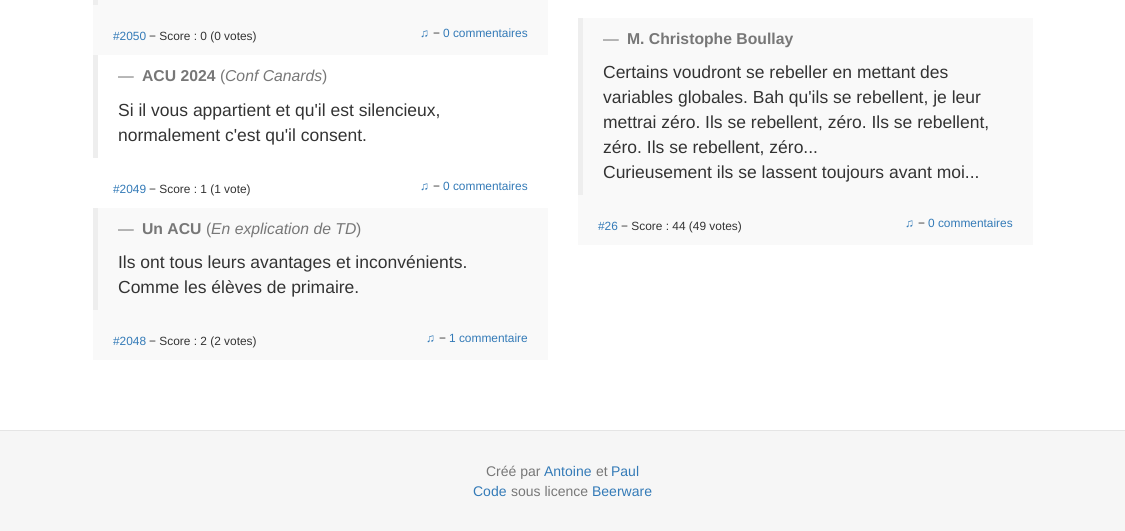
import math
import cairo

surface = cairo.ImageSurface(cairo.FORMAT_RGB24, 1125, 531)
ctx = cairo.Context(surface)
options = cairo.FontOptions()
options.set_hint_metrics(cairo.HINT_METRICS_OFF)
options.set_hint_style(cairo.HINT_STYLE_NONE)
ctx.set_font_options(options)
ctx.set_miter_limit(4)


ctx.set_source_rgb(1, 1, 1)
ctx.paint()
ctx.set_source_rgb(0.976, 0.976, 0.976)
ctx.rectangle(93, 0, 455, 55)
ctx.fill()
ctx.set_source_rgb(0.933, 0.933, 0.933)
ctx.rectangle(93, 0, 5, 5)
ctx.fill()
ctx.select_font_face("Liberation Sans")
ctx.set_font_size(11.9)
ctx.set_source_rgb(0.2, 0.478, 0.718)
ctx.move_to(113, 40)
ctx.show_text("#2050")
ctx.set_source_rgb(0.2, 0.2, 0.2)
ctx.move_to(149, 40)
ctx.show_text("− Score : 0 (0 votes)")
ctx.set_source_rgb(0.2, 0.478, 0.718)
ctx.move_to(420, 37)
ctx.show_text("♫")
ctx.set_source_rgb(0.2, 0.2, 0.2)
ctx.move_to(433, 37)
ctx.show_text("−")
ctx.set_source_rgb(0.2, 0.478, 0.718)
ctx.move_to(443, 37)
ctx.show_text("0 commentaires")
ctx.set_source_rgb(0.933, 0.933, 0.933)
ctx.rectangle(93, 55, 5, 103)
ctx.fill()
ctx.set_font_size(15.75)
ctx.set_source_rgb(0.467, 0.467, 0.467)
ctx.move_to(118, 81)
ctx.show_text("—")
ctx.select_font_face("Liberation Sans", cairo.FONT_SLANT_NORMAL, cairo.FONT_WEIGHT_BOLD)
ctx.move_to(142, 81)
ctx.show_text("ACU 2024")
ctx.select_font_face("Liberation Sans")
ctx.move_to(220, 81)
ctx.show_text("(")
ctx.select_font_face("Liberation Sans", cairo.FONT_SLANT_ITALIC)
ctx.move_to(225, 81)
ctx.show_text("Conf Canards")
ctx.select_font_face("Liberation Sans")
ctx.move_to(322, 81)
ctx.show_text(")")
ctx.set_font_size(17.5)
ctx.set_source_rgb(0.2, 0.2, 0.2)
ctx.move_to(118, 116)
ctx.show_text("Si il vous appartient et qu'il est silencieux,")
ctx.move_to(118, 141)
ctx.show_text("normalement c'est qu'il consent.")
ctx.set_font_size(11.9)
ctx.set_source_rgb(0.2, 0.478, 0.718)
ctx.move_to(113, 193)
ctx.show_text("#2049")
ctx.set_source_rgb(0.2, 0.2, 0.2)
ctx.move_to(149, 193)
ctx.show_text("− Score : 1 (1 vote)")
ctx.set_source_rgb(0.2, 0.478, 0.718)
ctx.move_to(420, 190)
ctx.show_text("♫")
ctx.set_source_rgb(0.2, 0.2, 0.2)
ctx.move_to(433, 190)
ctx.show_text("−")
ctx.set_source_rgb(0.2, 0.478, 0.718)
ctx.move_to(443, 190)
ctx.show_text("0 commentaires")
ctx.set_source_rgb(0.976, 0.976, 0.976)
ctx.rectangle(93, 208, 455, 152)
ctx.fill()
ctx.set_source_rgb(0.933, 0.933, 0.933)
ctx.rectangle(93, 208, 5, 102)
ctx.fill()
ctx.set_font_size(15.75)
ctx.set_source_rgb(0.467, 0.467, 0.467)
ctx.move_to(118, 234)
ctx.show_text("—")
ctx.select_font_face("Liberation Sans", cairo.FONT_SLANT_NORMAL, cairo.FONT_WEIGHT_BOLD)
ctx.move_to(142, 234)
ctx.show_text("Un ACU")
ctx.select_font_face("Liberation Sans")
ctx.move_to(206, 234)
ctx.show_text("(")
ctx.select_font_face("Liberation Sans", cairo.FONT_SLANT_ITALIC)
ctx.move_to(211, 234)
ctx.show_text("En explication de TD")
ctx.select_font_face("Liberation Sans")
ctx.move_to(356, 234)
ctx.show_text(")")
ctx.set_font_size(17.5)
ctx.set_source_rgb(0.2, 0.2, 0.2)
ctx.move_to(118, 268)
ctx.show_text("Ils ont tous leurs avantages et inconvénients.")
ctx.move_to(118, 293)
ctx.show_text("Comme les élèves de primaire.")
ctx.set_font_size(11.9)
ctx.set_source_rgb(0.2, 0.478, 0.718)
ctx.move_to(113, 345)
ctx.show_text("#2048")
ctx.set_source_rgb(0.2, 0.2, 0.2)
ctx.move_to(149, 345)
ctx.show_text("− Score : 2 (2 votes)")
ctx.set_source_rgb(0.2, 0.478, 0.718)
ctx.move_to(426, 342)
ctx.show_text("♫")
ctx.set_source_rgb(0.2, 0.2, 0.2)
ctx.move_to(439, 342)
ctx.show_text("−")
ctx.set_source_rgb(0.2, 0.478, 0.718)
ctx.move_to(449, 342)
ctx.show_text("1 commentaire")
ctx.set_source_rgb(0.976, 0.976, 0.976)
ctx.rectangle(578, 18, 455, 227)
ctx.fill()
ctx.set_source_rgb(0.933, 0.933, 0.933)
ctx.rectangle(578, 18, 5, 177)
ctx.fill()
ctx.set_font_size(15.75)
ctx.set_source_rgb(0.467, 0.467, 0.467)
ctx.move_to(603, 44)
ctx.show_text("—")
ctx.select_font_face("Liberation Sans", cairo.FONT_SLANT_NORMAL, cairo.FONT_WEIGHT_BOLD)
ctx.move_to(627, 44)
ctx.show_text("M. Christophe Boullay")
ctx.select_font_face("Liberation Sans")
ctx.set_font_size(17.5)
ctx.set_source_rgb(0.2, 0.2, 0.2)
ctx.move_to(603, 78)
ctx.show_text("Certains voudront se rebeller en mettant des")
ctx.move_to(603, 103)
ctx.show_text("variables globales. Bah qu'ils se rebellent, je leur")
ctx.move_to(603, 128)
ctx.show_text("mettrai zéro. Ils se rebellent, zéro. Ils se rebellent,")
ctx.move_to(603, 153)
ctx.show_text("zéro. Ils se rebellent, zéro...")
ctx.move_to(603, 178)
ctx.show_text("Curieusement ils se lassent toujours avant moi...")
ctx.set_font_size(11.9)
ctx.set_source_rgb(0.2, 0.478, 0.718)
ctx.move_to(598, 230)
ctx.show_text("#26")
ctx.set_source_rgb(0.2, 0.2, 0.2)
ctx.move_to(621, 230)
ctx.show_text("− Score : 44 (49 votes)")
ctx.set_source_rgb(0.2, 0.478, 0.718)
ctx.move_to(905, 227)
ctx.show_text("♫")
ctx.set_source_rgb(0.2, 0.2, 0.2)
ctx.move_to(918, 227)
ctx.show_text("−")
ctx.set_source_rgb(0.2, 0.478, 0.718)
ctx.move_to(928, 227)
ctx.show_text("0 commentaires")
ctx.set_source_rgb(0.961, 0.961, 0.961)
ctx.rectangle(0, 431, 1125, 100)
ctx.fill()
ctx.set_source_rgb(0.898, 0.898, 0.898)
ctx.rectangle(0, 430, 1125, 1)
ctx.fill()
ctx.set_font_size(14)
ctx.set_source_rgb(0.467, 0.467, 0.467)
ctx.move_to(486, 476)
ctx.show_text("Créé par")
ctx.set_source_rgb(0.2, 0.478, 0.718)
ctx.move_to(544, 476)
ctx.show_text("Antoine")
ctx.set_source_rgb(0.467, 0.467, 0.467)
ctx.move_to(596, 476)
ctx.show_text("et")
ctx.set_source_rgb(0.2, 0.478, 0.718)
ctx.move_to(611, 476)
ctx.show_text("Paul")
ctx.move_to(473, 496)
ctx.show_text("Code")
ctx.set_source_rgb(0.467, 0.467, 0.467)
ctx.move_to(511, 496)
ctx.show_text("sous licence")
ctx.set_source_rgb(0.2, 0.478, 0.718)
ctx.move_to(592, 496)
ctx.show_text("Beerware")
surface.write_to_png("page.png")
